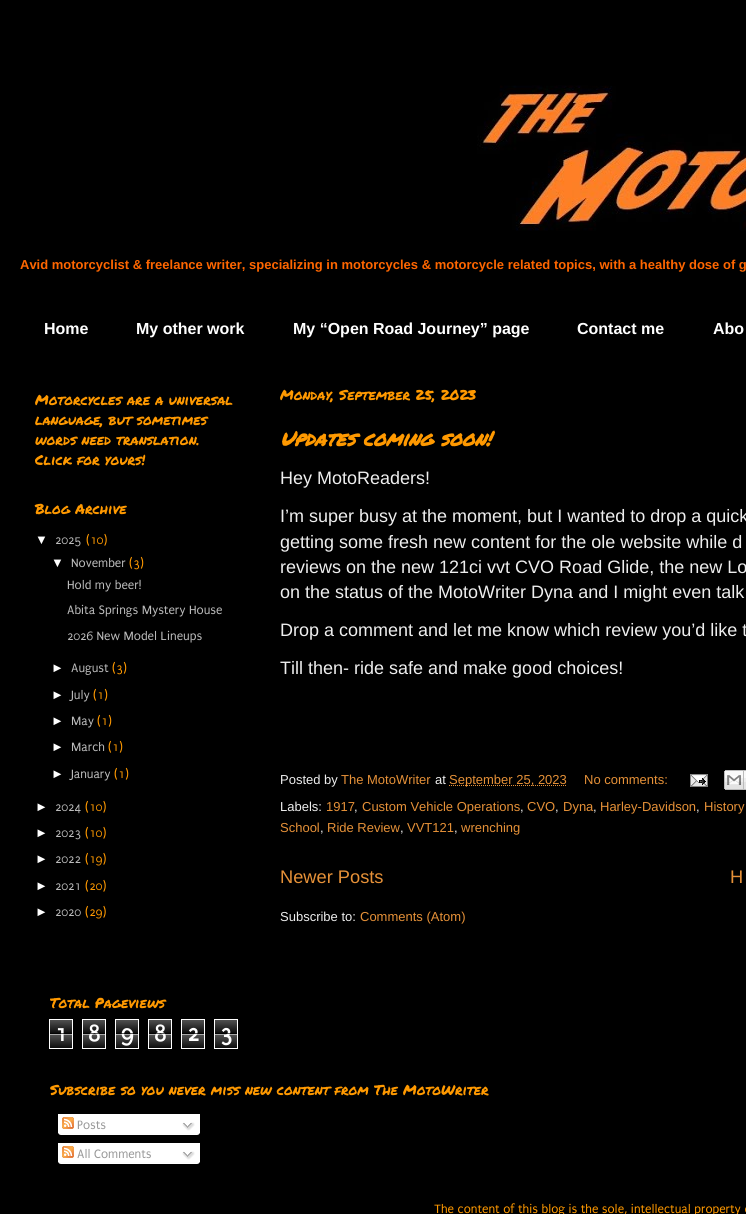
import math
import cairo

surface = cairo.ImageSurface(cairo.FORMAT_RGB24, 746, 1214)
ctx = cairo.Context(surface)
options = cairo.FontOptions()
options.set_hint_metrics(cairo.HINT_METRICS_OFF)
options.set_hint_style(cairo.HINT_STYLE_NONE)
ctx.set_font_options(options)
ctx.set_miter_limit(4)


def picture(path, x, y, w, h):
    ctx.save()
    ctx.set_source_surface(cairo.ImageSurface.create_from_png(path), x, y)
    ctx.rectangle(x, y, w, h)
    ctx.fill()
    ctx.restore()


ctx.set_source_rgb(0, 0, 0)
ctx.paint()
picture("img1.png", 477, 85, 269, 146)
ctx.select_font_face("Liberation Sans", cairo.FONT_SLANT_NORMAL, cairo.FONT_WEIGHT_BOLD)
ctx.set_font_size(13)
ctx.set_source_rgb(1, 0.4, 0)
ctx.move_to(20, 269)
ctx.show_text("Avid motorcyclist & freelance writer, specializing in motorcycles & motorcycle related topics, with a healthy dose of g")
ctx.set_font_size(16)
ctx.set_source_rgb(1, 1, 1)
ctx.move_to(44, 334)
ctx.show_text("Home")
ctx.move_to(136, 334)
ctx.show_text("My other work")
ctx.move_to(293, 334)
ctx.show_text("My “Open Road Journey” page")
ctx.move_to(577, 334)
ctx.show_text("Contact me")
ctx.move_to(713, 334)
ctx.show_text("Abo")
ctx.select_font_face("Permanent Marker")
ctx.set_font_size(14)
ctx.set_source_rgb(1, 0.6, 0)
ctx.move_to(35, 405)
ctx.show_text("Motorcycles are a universal")
ctx.move_to(35, 425)
ctx.show_text("language, but sometimes")
ctx.move_to(35, 445)
ctx.show_text("words need translation.")
ctx.move_to(35, 465)
ctx.show_text("Click for yours!")
ctx.move_to(35, 514)
ctx.show_text("Blog Archive")
ctx.select_font_face("Liberation Sans")
ctx.set_font_size(13)
ctx.set_source_rgb(1, 1, 1)
ctx.move_to(35, 544)
ctx.show_text("▼")
ctx.select_font_face("Puritan")
ctx.set_source_rgb(0.733, 0.733, 0.733)
ctx.move_to(55, 544)
ctx.show_text("2025")
ctx.set_source_rgb(1, 0.6, 0)
ctx.move_to(86, 544)
ctx.show_text("(10)")
ctx.select_font_face("Liberation Sans")
ctx.set_source_rgb(1, 1, 1)
ctx.move_to(51, 567)
ctx.show_text("▼")
ctx.select_font_face("Puritan")
ctx.set_source_rgb(0.733, 0.733, 0.733)
ctx.move_to(71, 567)
ctx.show_text("November")
ctx.set_source_rgb(1, 0.6, 0)
ctx.move_to(129, 567)
ctx.show_text("(3)")
ctx.set_source_rgb(0.733, 0.733, 0.733)
ctx.move_to(67, 589)
ctx.show_text("Hold my beer!")
ctx.move_to(67, 614)
ctx.show_text("Abita Springs Mystery House")
ctx.move_to(67, 640)
ctx.show_text("2026 New Model Lineups")
ctx.select_font_face("Liberation Sans")
ctx.set_source_rgb(1, 1, 1)
ctx.move_to(51, 672)
ctx.show_text("►")
ctx.select_font_face("Puritan")
ctx.set_source_rgb(0.733, 0.733, 0.733)
ctx.move_to(71, 672)
ctx.show_text("August")
ctx.set_source_rgb(1, 0.6, 0)
ctx.move_to(112, 672)
ctx.show_text("(3)")
ctx.select_font_face("Liberation Sans")
ctx.set_source_rgb(1, 1, 1)
ctx.move_to(51, 699)
ctx.show_text("►")
ctx.select_font_face("Puritan")
ctx.set_source_rgb(0.733, 0.733, 0.733)
ctx.move_to(71, 699)
ctx.show_text("July")
ctx.set_source_rgb(1, 0.6, 0)
ctx.move_to(93, 699)
ctx.show_text("(1)")
ctx.select_font_face("Liberation Sans")
ctx.set_source_rgb(1, 1, 1)
ctx.move_to(51, 725)
ctx.show_text("►")
ctx.select_font_face("Puritan")
ctx.set_source_rgb(0.733, 0.733, 0.733)
ctx.move_to(71, 725)
ctx.show_text("May")
ctx.set_source_rgb(1, 0.6, 0)
ctx.move_to(97, 725)
ctx.show_text("(1)")
ctx.select_font_face("Liberation Sans")
ctx.set_source_rgb(1, 1, 1)
ctx.move_to(51, 751)
ctx.show_text("►")
ctx.select_font_face("Puritan")
ctx.set_source_rgb(0.733, 0.733, 0.733)
ctx.move_to(71, 751)
ctx.show_text("March")
ctx.set_source_rgb(1, 0.6, 0)
ctx.move_to(108, 751)
ctx.show_text("(1)")
ctx.select_font_face("Liberation Sans")
ctx.set_source_rgb(1, 1, 1)
ctx.move_to(51, 778)
ctx.show_text("►")
ctx.select_font_face("Puritan")
ctx.set_source_rgb(0.733, 0.733, 0.733)
ctx.move_to(71, 778)
ctx.show_text("January")
ctx.set_source_rgb(1, 0.6, 0)
ctx.move_to(114, 778)
ctx.show_text("(1)")
ctx.select_font_face("Liberation Sans")
ctx.set_source_rgb(1, 1, 1)
ctx.move_to(35, 811)
ctx.show_text("►")
ctx.select_font_face("Puritan")
ctx.set_source_rgb(0.733, 0.733, 0.733)
ctx.move_to(55, 811)
ctx.show_text("2024")
ctx.set_source_rgb(1, 0.6, 0)
ctx.move_to(85, 811)
ctx.show_text("(10)")
ctx.select_font_face("Liberation Sans")
ctx.set_source_rgb(1, 1, 1)
ctx.move_to(35, 837)
ctx.show_text("►")
ctx.select_font_face("Puritan")
ctx.set_source_rgb(0.733, 0.733, 0.733)
ctx.move_to(55, 837)
ctx.show_text("2023")
ctx.set_source_rgb(1, 0.6, 0)
ctx.move_to(85, 837)
ctx.show_text("(10)")
ctx.select_font_face("Liberation Sans")
ctx.set_source_rgb(1, 1, 1)
ctx.move_to(35, 863)
ctx.show_text("►")
ctx.select_font_face("Puritan")
ctx.set_source_rgb(0.733, 0.733, 0.733)
ctx.move_to(55, 863)
ctx.show_text("2022")
ctx.set_source_rgb(1, 0.6, 0)
ctx.move_to(85, 863)
ctx.show_text("(19)")
ctx.select_font_face("Liberation Sans")
ctx.set_source_rgb(1, 1, 1)
ctx.move_to(35, 890)
ctx.show_text("►")
ctx.select_font_face("Puritan")
ctx.set_source_rgb(0.733, 0.733, 0.733)
ctx.move_to(55, 890)
ctx.show_text("2021")
ctx.set_source_rgb(1, 0.6, 0)
ctx.move_to(85, 890)
ctx.show_text("(20)")
ctx.select_font_face("Liberation Sans")
ctx.set_source_rgb(1, 1, 1)
ctx.move_to(35, 916)
ctx.show_text("►")
ctx.select_font_face("Puritan")
ctx.set_source_rgb(0.733, 0.733, 0.733)
ctx.move_to(55, 916)
ctx.show_text("2020")
ctx.set_source_rgb(1, 0.6, 0)
ctx.move_to(85, 916)
ctx.show_text("(29)")
ctx.select_font_face("Permanent Marker")
ctx.set_font_size(14)
ctx.move_to(280, 400)
ctx.show_text("Monday, September 25, 2023")
ctx.select_font_face("Permanent Marker", cairo.FONT_SLANT_ITALIC, cairo.FONT_WEIGHT_BOLD)
ctx.set_font_size(20)
ctx.move_to(280, 446)
ctx.show_text("Updates coming soon!")
ctx.select_font_face("Liberation Sans")
ctx.set_font_size(18)
ctx.set_source_rgb(0.933, 0.933, 0.933)
ctx.move_to(280, 484)
ctx.show_text("Hey MotoReaders!")
ctx.move_to(280, 522)
ctx.show_text("I’m super busy at the moment, but I wanted to drop a quick")
ctx.move_to(280, 548)
ctx.show_text("getting some fresh new content for the ole website while d")
ctx.move_to(280, 573)
ctx.show_text("reviews on the new 121ci vvt CVO Road Glide, the new Lo")
ctx.move_to(280, 598)
ctx.show_text("on the status of the MotoWriter Dyna and I might even talk")
ctx.move_to(280, 636)
ctx.show_text("Drop a comment and let me know which review you’d like t")
ctx.move_to(280, 674)
ctx.show_text("Till then- ride safe and make good choices!")
ctx.set_font_size(13)
ctx.move_to(280, 784)
ctx.show_text("Posted by")
ctx.set_source_rgb(0.902, 0.569, 0.22)
ctx.move_to(341, 784)
ctx.show_text("The MotoWriter")
ctx.set_source_rgb(0.933, 0.933, 0.933)
ctx.move_to(435, 784)
ctx.show_text("at")
ctx.new_path()
ctx.move_to(449, 785.5)
ctx.line_to(567, 785.5)
ctx.set_source_rgb(0.902, 0.569, 0.22)
ctx.set_line_width(1)
ctx.set_dash([1, 1])
ctx.stroke()
ctx.move_to(449, 784)
ctx.show_text("September 25, 2023")
ctx.move_to(584, 784)
ctx.show_text("No comments:")
picture("img2.png", 690, 774, 18, 13)
picture("img3.png", 724, 770, 20, 20)
picture("img4.png", 744, 770, 2, 20)
ctx.set_source_rgb(0.933, 0.933, 0.933)
ctx.move_to(280, 811)
ctx.show_text("Labels:")
ctx.set_source_rgb(0.902, 0.569, 0.22)
ctx.move_to(326, 811)
ctx.show_text("1917")
ctx.set_source_rgb(0.933, 0.933, 0.933)
ctx.move_to(354, 811)
ctx.show_text(",")
ctx.set_source_rgb(0.902, 0.569, 0.22)
ctx.move_to(362, 811)
ctx.show_text("Custom Vehicle Operations")
ctx.set_source_rgb(0.933, 0.933, 0.933)
ctx.move_to(520, 811)
ctx.show_text(",")
ctx.set_source_rgb(0.902, 0.569, 0.22)
ctx.move_to(527, 811)
ctx.show_text("CVO")
ctx.set_source_rgb(0.933, 0.933, 0.933)
ctx.move_to(555, 811)
ctx.show_text(",")
ctx.set_source_rgb(0.902, 0.569, 0.22)
ctx.move_to(563, 811)
ctx.show_text("Dyna")
ctx.set_source_rgb(0.933, 0.933, 0.933)
ctx.move_to(593, 811)
ctx.show_text(",")
ctx.set_source_rgb(0.902, 0.569, 0.22)
ctx.move_to(600, 811)
ctx.show_text("Harley-Davidson")
ctx.set_source_rgb(0.933, 0.933, 0.933)
ctx.move_to(696, 811)
ctx.show_text(",")
ctx.set_source_rgb(0.902, 0.569, 0.22)
ctx.move_to(704, 811)
ctx.show_text("History")
ctx.move_to(280, 832)
ctx.show_text("School")
ctx.set_source_rgb(0.933, 0.933, 0.933)
ctx.move_to(320, 832)
ctx.show_text(",")
ctx.set_source_rgb(0.902, 0.569, 0.22)
ctx.move_to(327, 832)
ctx.show_text("Ride Review")
ctx.set_source_rgb(0.933, 0.933, 0.933)
ctx.move_to(400, 832)
ctx.show_text(",")
ctx.set_source_rgb(0.902, 0.569, 0.22)
ctx.move_to(407, 832)
ctx.show_text("VVT121")
ctx.set_source_rgb(0.933, 0.933, 0.933)
ctx.move_to(454, 832)
ctx.show_text(",")
ctx.set_source_rgb(0.902, 0.569, 0.22)
ctx.move_to(461, 832)
ctx.show_text("wrenching")
ctx.set_font_size(18.25)
ctx.move_to(280, 883)
ctx.show_text("Newer Posts")
ctx.move_to(730, 883)
ctx.show_text("H")
ctx.set_font_size(13)
ctx.set_source_rgb(0.933, 0.933, 0.933)
ctx.move_to(280, 921)
ctx.show_text("Subscribe to:")
ctx.set_source_rgb(0.902, 0.569, 0.22)
ctx.move_to(360, 921)
ctx.show_text("Comments (Atom)")
ctx.select_font_face("Permanent Marker")
ctx.set_font_size(14)
ctx.set_source_rgb(1, 0.6, 0)
ctx.move_to(50, 1008)
ctx.show_text("Total Pageviews")
picture("img5.png", 50, 1020, 22, 28)
ctx.rectangle(49.5, 1019.5, 23, 29)
ctx.set_source_rgb(1, 1, 1)
ctx.set_dash([])
ctx.stroke()
ctx.select_font_face("Puritan", cairo.FONT_SLANT_NORMAL, cairo.FONT_WEIGHT_BOLD)
ctx.set_font_size(24)
ctx.move_to(55, 1041)
ctx.show_text("1")
ctx.set_source_rgba(0, 0, 0, 0.65)
ctx.rectangle(50, 1033, 22, 1)
ctx.fill()
ctx.set_source_rgba(1, 1, 1, 0.65)
ctx.rectangle(50, 1034, 22, 1)
ctx.fill()
picture("img5.png", 83, 1020, 22, 28)
ctx.rectangle(82.5, 1019.5, 23, 29)
ctx.set_source_rgb(1, 1, 1)
ctx.stroke()
ctx.move_to(88, 1041)
ctx.show_text("8")
ctx.set_source_rgba(0, 0, 0, 0.65)
ctx.rectangle(83, 1033, 22, 1)
ctx.fill()
ctx.set_source_rgba(1, 1, 1, 0.65)
ctx.rectangle(83, 1034, 22, 1)
ctx.fill()
picture("img5.png", 116, 1020, 22, 28)
ctx.rectangle(115.5, 1019.5, 23, 29)
ctx.set_source_rgb(1, 1, 1)
ctx.stroke()
ctx.move_to(121, 1041)
ctx.show_text("9")
ctx.set_source_rgba(0, 0, 0, 0.65)
ctx.rectangle(116, 1033, 22, 1)
ctx.fill()
ctx.set_source_rgba(1, 1, 1, 0.65)
ctx.rectangle(116, 1034, 22, 1)
ctx.fill()
picture("img5.png", 149, 1020, 22, 28)
ctx.rectangle(148.5, 1019.5, 23, 29)
ctx.set_source_rgb(1, 1, 1)
ctx.stroke()
ctx.move_to(154, 1041)
ctx.show_text("8")
ctx.set_source_rgba(0, 0, 0, 0.65)
ctx.rectangle(149, 1033, 22, 1)
ctx.fill()
ctx.set_source_rgba(1, 1, 1, 0.65)
ctx.rectangle(149, 1034, 22, 1)
ctx.fill()
picture("img5.png", 182, 1020, 22, 28)
ctx.rectangle(181.5, 1019.5, 23, 29)
ctx.set_source_rgb(1, 1, 1)
ctx.stroke()
ctx.move_to(187, 1041)
ctx.show_text("2")
ctx.set_source_rgba(0, 0, 0, 0.65)
ctx.rectangle(182, 1033, 22, 1)
ctx.fill()
ctx.set_source_rgba(1, 1, 1, 0.65)
ctx.rectangle(182, 1034, 22, 1)
ctx.fill()
picture("img5.png", 215, 1020, 22, 28)
ctx.rectangle(214.5, 1019.5, 23, 29)
ctx.set_source_rgb(1, 1, 1)
ctx.stroke()
ctx.move_to(220, 1041)
ctx.show_text("3")
ctx.set_source_rgba(0, 0, 0, 0.65)
ctx.rectangle(215, 1033, 22, 1)
ctx.fill()
ctx.set_source_rgba(1, 1, 1, 0.65)
ctx.rectangle(215, 1034, 22, 1)
ctx.fill()
ctx.select_font_face("Permanent Marker")
ctx.set_font_size(14)
ctx.set_source_rgb(1, 0.6, 0)
ctx.move_to(50, 1095)
ctx.show_text("Subscribe so you never miss new content from The MotoWriter")
ctx.set_source_rgb(1, 1, 1)
ctx.rectangle(58, 1114, 142, 19)
ctx.fill()
picture("img6.png", 62, 1117, 12, 12)
ctx.select_font_face("Puritan")
ctx.set_font_size(13)
ctx.set_source_rgb(0.6, 0.6, 0.6)
ctx.move_to(77, 1129)
ctx.show_text("Posts")
picture("img7.png", 182, 1122, 13, 9)
picture("img8.png", 58, 1133, 142, 2)
ctx.set_source_rgb(1, 1, 1)
ctx.rectangle(58, 1143, 142, 19)
ctx.fill()
picture("img6.png", 62, 1146, 12, 12)
ctx.set_source_rgb(0.6, 0.6, 0.6)
ctx.move_to(77, 1158)
ctx.show_text("All Comments")
picture("img7.png", 182, 1151, 13, 9)
picture("img8.png", 58, 1162, 142, 2)
ctx.set_source_rgb(1, 0.6, 0)
ctx.move_to(434, 1213)
ctx.show_text("The content of this blog is the sole, intellectual property o")
surface.write_to_png("page.png")
